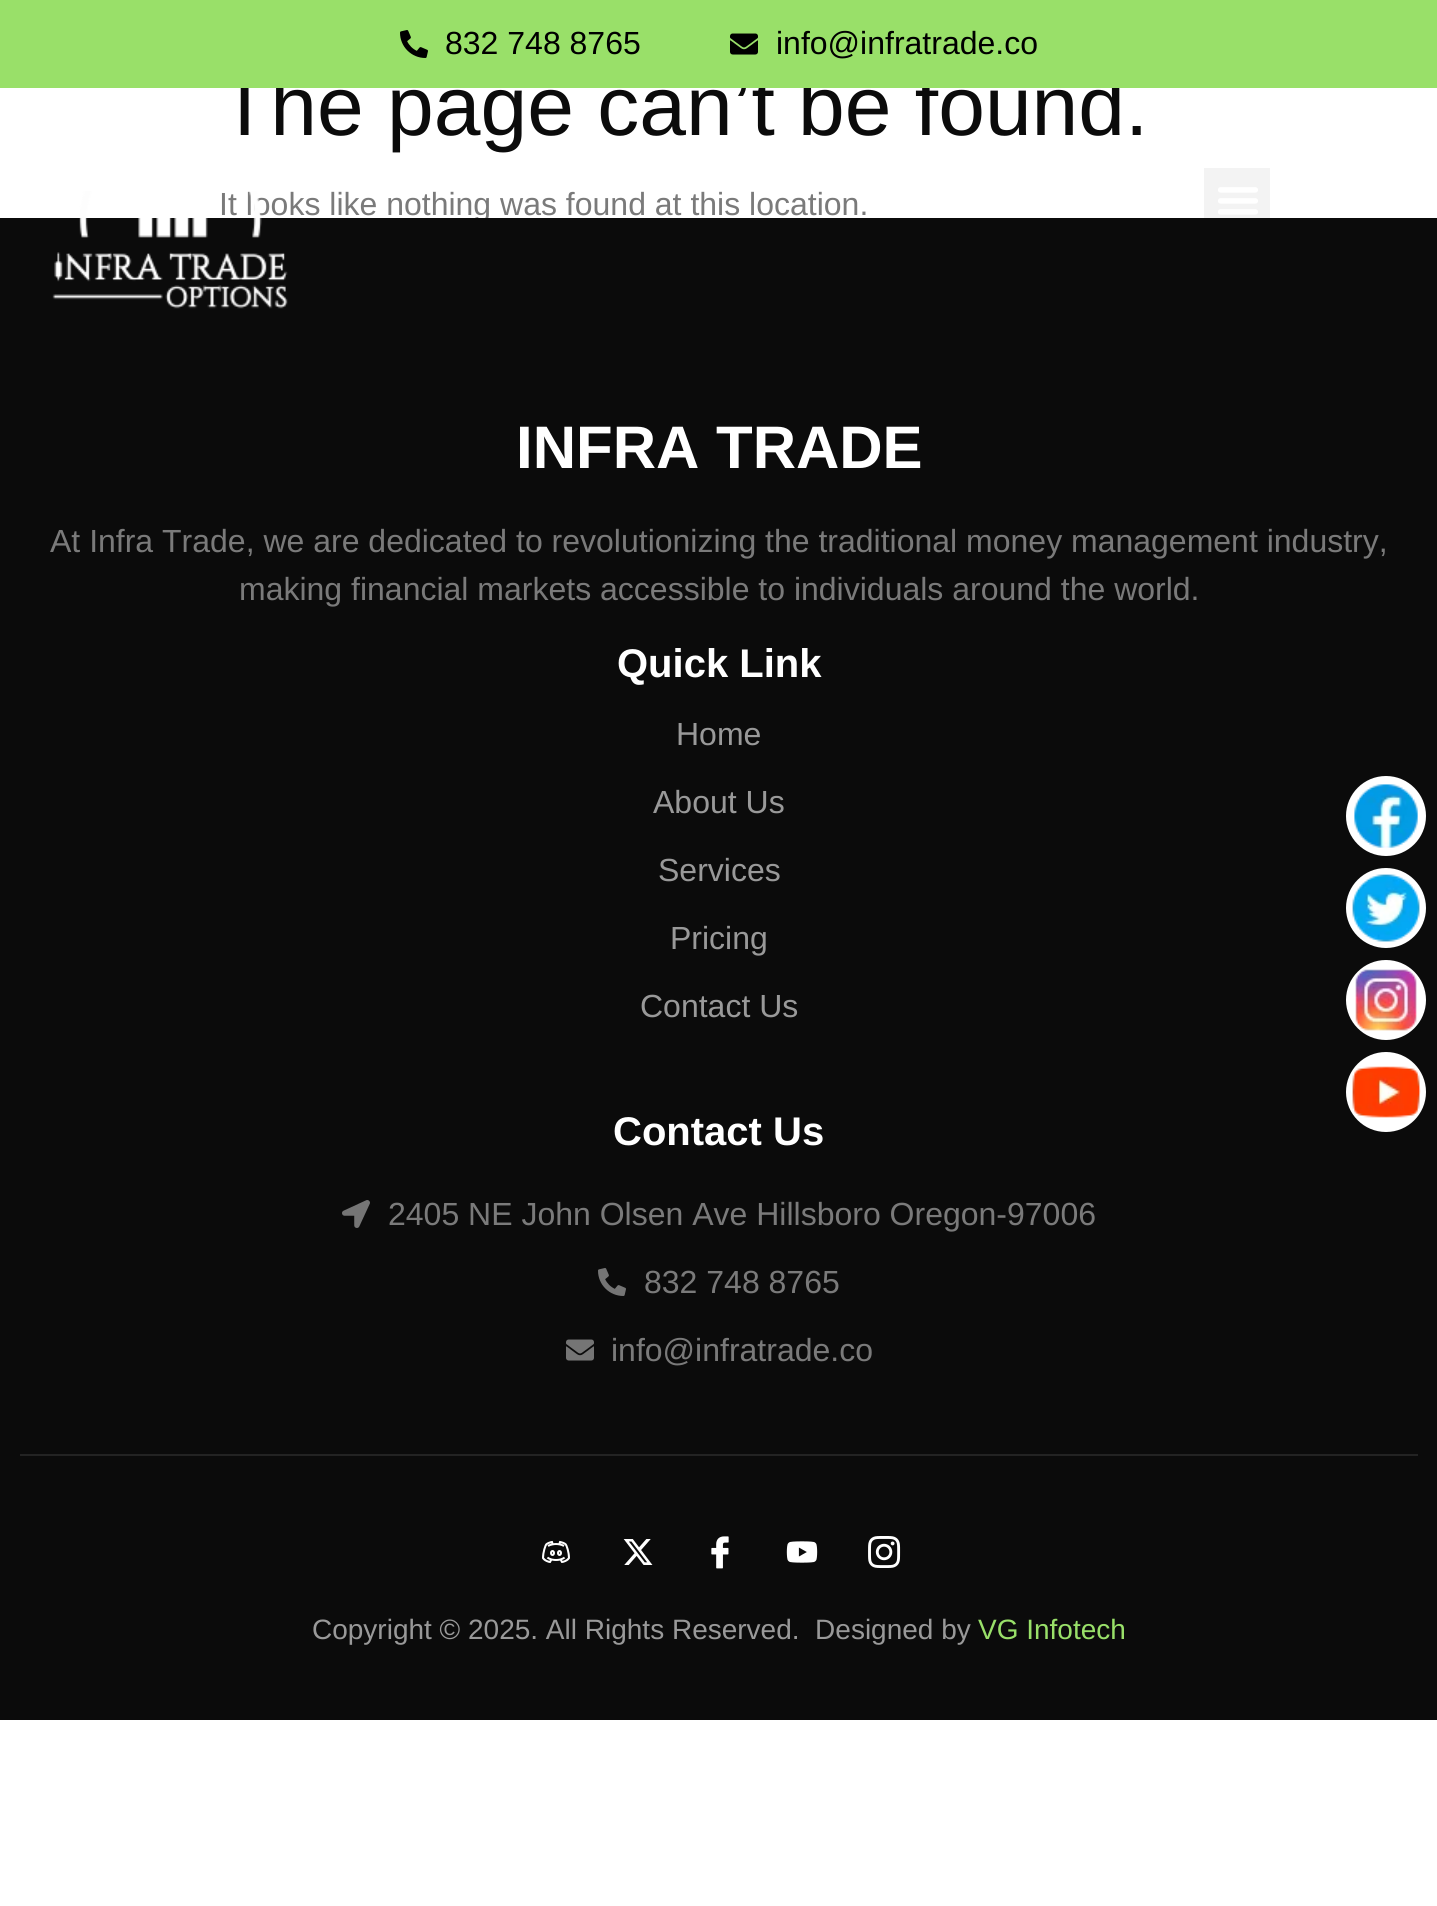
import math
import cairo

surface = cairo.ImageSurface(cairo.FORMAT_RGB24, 1437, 1906)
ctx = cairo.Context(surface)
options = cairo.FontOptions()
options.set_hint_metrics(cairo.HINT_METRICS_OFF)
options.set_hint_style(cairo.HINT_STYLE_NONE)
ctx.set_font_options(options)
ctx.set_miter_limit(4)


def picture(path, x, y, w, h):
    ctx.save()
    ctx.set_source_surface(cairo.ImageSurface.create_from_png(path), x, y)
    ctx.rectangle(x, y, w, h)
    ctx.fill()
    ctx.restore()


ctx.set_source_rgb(1, 1, 1)
ctx.paint()
ctx.select_font_face("Liberation Sans")
ctx.set_font_size(84)
ctx.set_source_rgb(0.043, 0.043, 0.043)
ctx.move_to(219, 135)
ctx.show_text("The page can’t be found.")
ctx.set_source_rgb(0.6, 0.878, 0.412)
ctx.rectangle(0, 0, 1437, 88)
ctx.fill()
picture("img1.png", 400, 30, 28, 28)
ctx.set_font_size(32)
ctx.set_source_rgb(0, 0, 0)
ctx.move_to(445, 54)
ctx.show_text("832 748 8765")
picture("img2.png", 730, 33, 28, 22)
ctx.move_to(776, 54)
ctx.show_text("info@infratrade.co")
ctx.set_source_rgb(0.478, 0.478, 0.478)
ctx.move_to(219, 215)
ctx.show_text("It looks like nothing was found at this location.")
ctx.set_source_rgb(0.043, 0.043, 0.043)
ctx.rectangle(0, 218, 1437, 1502)
ctx.fill()
picture("img3.png", 52, 191, 236, 118)
ctx.set_source_rgba(0, 0, 0, 0.05)
ctx.rectangle(1204, 168, 66, 50)
ctx.fill()
picture("img4.png", 1218, 187, 40, 28)
ctx.set_source_rgb(0.137, 0.137, 0.137)
ctx.rectangle(20, 1454, 1398, 2)
ctx.fill()
ctx.select_font_face("Liberation Sans", cairo.FONT_SLANT_NORMAL, cairo.FONT_WEIGHT_BOLD)
ctx.set_font_size(60)
ctx.set_source_rgb(1, 1, 1)
ctx.move_to(516, 468)
ctx.show_text("INFRA TRADE")
ctx.select_font_face("Liberation Sans")
ctx.set_font_size(32)
ctx.set_source_rgb(0.478, 0.478, 0.478)
ctx.move_to(50, 552)
ctx.show_text("At Infra Trade, we are dedicated to revolutionizing the traditional money management industry,")
ctx.move_to(239, 600)
ctx.show_text("making financial markets accessible to individuals around the world.")
ctx.select_font_face("Liberation Sans", cairo.FONT_SLANT_NORMAL, cairo.FONT_WEIGHT_BOLD)
ctx.set_font_size(40)
ctx.set_source_rgb(1, 1, 1)
ctx.move_to(617, 677)
ctx.show_text("Quick Link")
ctx.select_font_face("Liberation Sans")
ctx.set_font_size(32)
ctx.set_source_rgb(0.6, 0.6, 0.6)
ctx.move_to(676, 745)
ctx.show_text("Home")
ctx.move_to(653, 813)
ctx.show_text("About Us")
ctx.move_to(658, 881)
ctx.show_text("Services")
ctx.move_to(670, 949)
ctx.show_text("Pricing")
ctx.move_to(640, 1017)
ctx.show_text("Contact Us")
ctx.select_font_face("Liberation Sans", cairo.FONT_SLANT_NORMAL, cairo.FONT_WEIGHT_BOLD)
ctx.set_font_size(40)
ctx.set_source_rgb(1, 1, 1)
ctx.move_to(613, 1145)
ctx.show_text("Contact Us")
picture("img5.png", 342, 1200, 28, 28)
ctx.select_font_face("Liberation Sans")
ctx.set_font_size(32)
ctx.set_source_rgb(0.478, 0.478, 0.478)
ctx.move_to(388, 1225)
ctx.show_text("2405 NE John Olsen Ave Hillsboro Oregon-97006")
picture("img6.png", 598, 1268, 28, 28)
ctx.move_to(644, 1293)
ctx.show_text("832 748 8765")
picture("img7.png", 566, 1339, 28, 22)
ctx.move_to(611, 1361)
ctx.show_text("info@infratrade.co")
picture("img8.png", 542, 1540, 28, 23)
picture("img9.png", 623, 1539, 30, 26)
picture("img10.png", 711, 1536, 18, 33)
picture("img11.png", 786, 1541, 32, 22)
picture("img12.png", 868, 1536, 33, 32)
ctx.set_font_size(28)
ctx.set_source_rgb(0.6, 0.6, 0.6)
ctx.move_to(312, 1639)
ctx.show_text("Copyright © 2025. All Rights Reserved.  Designed by")
ctx.set_source_rgb(0.6, 0.878, 0.412)
ctx.move_to(978, 1639)
ctx.show_text("VG Infotech")
ctx.set_source_rgb(1, 1, 1)
ctx.new_path()
ctx.arc(1386, 816, 40, 0, 2 * math.pi)
ctx.fill()
picture("img13.png", 1354, 784, 64, 64)
ctx.arc(1386, 908, 40, 0, 2 * math.pi)
ctx.fill()
picture("img14.png", 1352, 874, 68, 68)
ctx.arc(1386, 1000, 40, 0, 2 * math.pi)
ctx.fill()
picture("img15.png", 1355, 969, 62, 62)
ctx.arc(1386, 1092, 40, 0, 2 * math.pi)
ctx.fill()
picture("img16.png", 1352, 1066, 69, 52)
surface.write_to_png("page.png")
